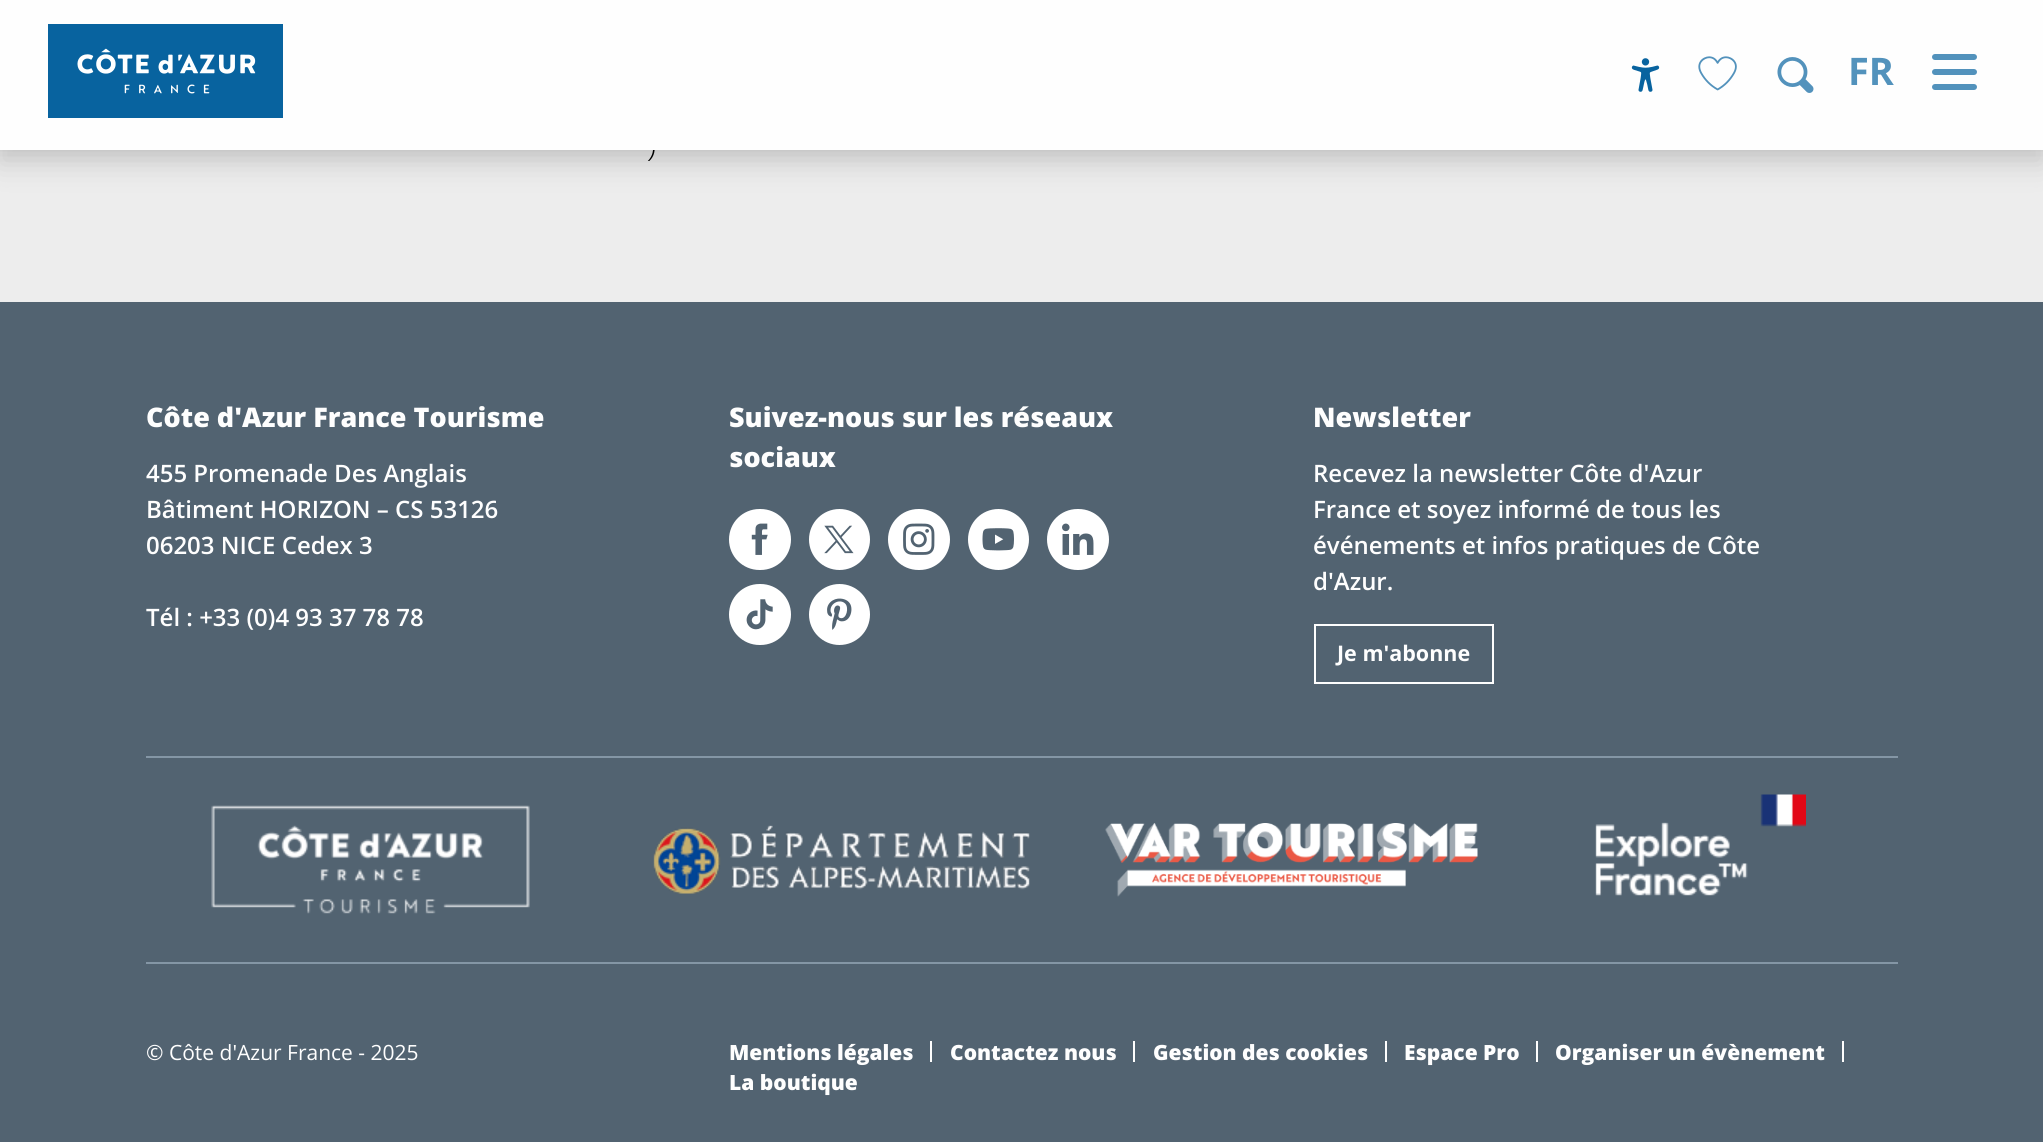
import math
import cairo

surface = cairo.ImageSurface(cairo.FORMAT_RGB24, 2043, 1142)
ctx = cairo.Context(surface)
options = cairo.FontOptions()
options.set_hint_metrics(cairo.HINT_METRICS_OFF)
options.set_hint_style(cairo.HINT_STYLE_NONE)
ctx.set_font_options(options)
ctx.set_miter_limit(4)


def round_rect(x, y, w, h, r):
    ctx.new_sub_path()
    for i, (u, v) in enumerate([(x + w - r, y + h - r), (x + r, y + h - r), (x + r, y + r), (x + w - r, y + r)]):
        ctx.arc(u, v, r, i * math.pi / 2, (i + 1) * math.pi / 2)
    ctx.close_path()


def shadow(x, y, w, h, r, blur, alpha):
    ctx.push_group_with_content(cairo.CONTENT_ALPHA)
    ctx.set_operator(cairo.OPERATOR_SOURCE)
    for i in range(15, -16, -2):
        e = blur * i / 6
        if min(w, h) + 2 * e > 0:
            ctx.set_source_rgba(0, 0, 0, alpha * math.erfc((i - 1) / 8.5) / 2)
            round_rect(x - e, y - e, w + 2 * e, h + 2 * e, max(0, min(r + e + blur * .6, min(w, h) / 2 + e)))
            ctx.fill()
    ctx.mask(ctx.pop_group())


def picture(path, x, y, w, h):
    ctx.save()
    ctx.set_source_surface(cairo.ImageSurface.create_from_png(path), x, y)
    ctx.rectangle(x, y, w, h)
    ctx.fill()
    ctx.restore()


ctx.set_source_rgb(0.929, 0.929, 0.929)
ctx.paint()
ctx.set_source_rgb(0, 0, 0)
shadow(0, 15, 2043, 150, 0, 15, 0.1)
shadow(-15, -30, 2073, 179, 0, 15, 0.15)
ctx.select_font_face("Open Sans", cairo.FONT_SLANT_ITALIC)
ctx.set_font_size(19)
ctx.set_source_rgb(0, 0, 0)
ctx.move_to(648, 158)
ctx.show_text(")")
ctx.set_source_rgb(0.996, 0.996, 0.996)
ctx.rectangle(0, 0, 2043, 150)
ctx.fill()
picture("img1.png", 48, 24, 235, 94)
ctx.set_source_rgb(0.322, 0.573, 0.737)
round_rect(1932, 84, 45, 6, 3)
ctx.fill()
round_rect(1932, 69, 45, 6, 3)
ctx.fill()
round_rect(1932, 54, 45, 6, 3)
ctx.fill()
picture("img2.png", 1631, 58, 29, 34)
picture("img3.png", 1698, 56, 39, 35)
picture("img4.png", 1777, 57, 37, 36)
ctx.select_font_face("Open Sans", cairo.FONT_SLANT_NORMAL, cairo.FONT_WEIGHT_BOLD)
ctx.set_font_size(38)
ctx.move_to(1848, 85)
ctx.show_text("FR")
ctx.set_source_rgb(0.322, 0.388, 0.443)
ctx.rectangle(0, 302, 2043, 840)
ctx.fill()
ctx.select_font_face("Open Sans ExtraBold")
ctx.set_font_size(27)
ctx.set_source_rgb(0.996, 0.996, 0.996)
ctx.move_to(146, 427)
ctx.show_text("Côte d'Azur France Tourisme")
ctx.select_font_face("Open Sans SemiBold")
ctx.set_font_size(24)
ctx.move_to(146, 482)
ctx.show_text("455 Promenade Des Anglais")
ctx.move_to(146, 518)
ctx.show_text("Bâtiment HORIZON – CS 53126")
ctx.move_to(146, 554)
ctx.show_text("06203 NICE Cedex 3")
ctx.move_to(146, 626)
ctx.show_text("Tél : +33 (0)4 93 37 78 78")
ctx.select_font_face("Open Sans ExtraBold")
ctx.set_font_size(27)
ctx.move_to(729, 427)
ctx.show_text("Suivez-nous sur les réseaux")
ctx.move_to(729, 467)
ctx.show_text("sociaux")
ctx.set_source_rgb(1, 1, 1)
round_rect(729, 509, 62, 61, 30.5)
ctx.fill()
picture("img5.png", 751, 523, 17, 32)
ctx.arc(839.5, 539.5, 30.5, 0, 2 * math.pi)
ctx.fill()
picture("img6.png", 824, 525, 30, 29)
round_rect(888, 509, 62, 61, 30.5)
ctx.fill()
picture("img7.png", 903, 523, 32, 32)
ctx.arc(998.5, 539.5, 30.5, 0, 2 * math.pi)
ctx.fill()
picture("img8.png", 982, 528, 32, 23)
round_rect(1047, 509, 62, 61, 30.5)
ctx.fill()
picture("img9.png", 1062, 523, 32, 32)
round_rect(729, 584, 62, 61, 30.5)
ctx.fill()
picture("img10.png", 746, 599, 27, 31)
ctx.arc(839.5, 614.5, 30.5, 0, 2 * math.pi)
ctx.fill()
picture("img11.png", 827, 598, 25, 32)
ctx.set_source_rgb(0.996, 0.996, 0.996)
ctx.move_to(1313, 427)
ctx.show_text("Newsletter")
ctx.select_font_face("Open Sans SemiBold")
ctx.set_font_size(24)
ctx.move_to(1313, 482)
ctx.show_text("Recevez la newsletter Côte d'Azur")
ctx.move_to(1313, 518)
ctx.show_text("France et soyez informé de tous les")
ctx.move_to(1313, 554)
ctx.show_text("événements et infos pratiques de Côte")
ctx.move_to(1313, 590)
ctx.show_text("d'Azur.")
ctx.rectangle(1315, 625, 178, 58)
ctx.stroke()
ctx.select_font_face("Open Sans", cairo.FONT_SLANT_NORMAL, cairo.FONT_WEIGHT_BOLD)
ctx.set_font_size(21.5)
ctx.move_to(1337, 661)
ctx.show_text("Je m'abonne")
ctx.set_source_rgb(0.518, 0.588, 0.647)
ctx.rectangle(146, 756, 1752, 2)
ctx.fill()
ctx.rectangle(146, 962, 1752, 2)
ctx.fill()
picture("img12.png", 211, 805, 319, 109)
picture("img13.png", 653, 825, 377, 69)
picture("img14.png", 1105, 823, 373, 74)
picture("img15.png", 1595, 794, 211, 102)
ctx.select_font_face("Open Sans")
ctx.set_font_size(21)
ctx.set_source_rgb(0.996, 0.996, 0.996)
ctx.move_to(146, 1060)
ctx.show_text("© Côte d'Azur France - 2025")
ctx.select_font_face("Open Sans ExtraBold")
ctx.move_to(729, 1060)
ctx.show_text("Mentions légales")
ctx.rectangle(930, 1041, 2, 21)
ctx.fill()
ctx.move_to(950, 1060)
ctx.show_text("Contactez nous")
ctx.rectangle(1133, 1041, 2, 21)
ctx.fill()
ctx.move_to(1153, 1060)
ctx.show_text("Gestion des cookies")
ctx.rectangle(1385, 1041, 2, 21)
ctx.fill()
ctx.move_to(1404, 1060)
ctx.show_text("Espace Pro")
ctx.rectangle(1536, 1041, 2, 21)
ctx.fill()
ctx.move_to(1555, 1060)
ctx.show_text("Organiser un évènement")
ctx.rectangle(1842, 1041, 2, 21)
ctx.fill()
ctx.move_to(729, 1090)
ctx.show_text("La boutique")
surface.write_to_png("page.png")
